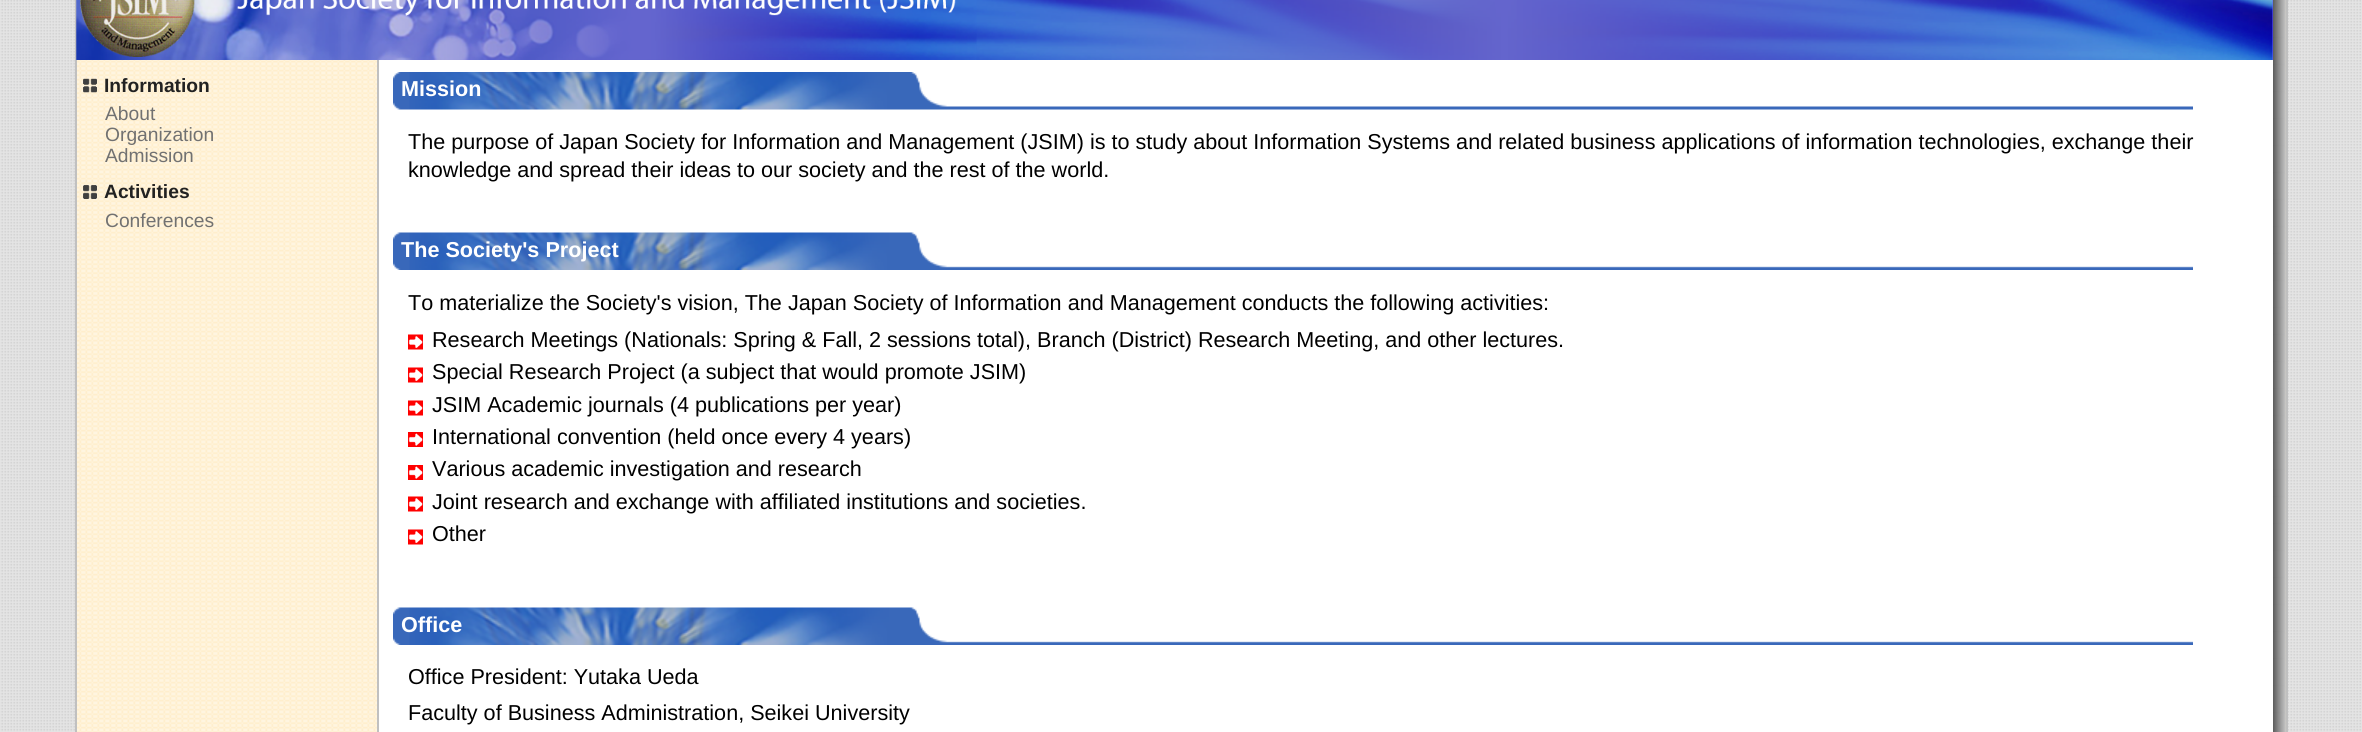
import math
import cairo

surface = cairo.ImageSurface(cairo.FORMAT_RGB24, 2362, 732)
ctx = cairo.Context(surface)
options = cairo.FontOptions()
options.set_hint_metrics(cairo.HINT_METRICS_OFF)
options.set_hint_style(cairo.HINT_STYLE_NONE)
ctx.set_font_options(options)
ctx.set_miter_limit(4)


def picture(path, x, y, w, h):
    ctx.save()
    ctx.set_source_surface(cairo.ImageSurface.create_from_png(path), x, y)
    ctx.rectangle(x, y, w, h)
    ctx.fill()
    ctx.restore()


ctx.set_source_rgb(1, 1, 1)
ctx.paint()
picture("img1.png", 0, 0, 2362, 732)
picture("img2.png", 77, 0, 2209, 732)
ctx.set_source_rgb(0.753, 0.753, 0.753)
ctx.rectangle(2286, 0, 2, 732)
ctx.fill()
ctx.rectangle(75, 0, 2, 732)
ctx.fill()
ctx.set_source_rgb(0.4, 0.4, 1)
ctx.rectangle(2272, 0, 1, 60)
ctx.fill()
picture("img3.png", 76, 0, 2197, 60)
picture("img4.png", 76, 0, 901, 60)
picture("img5.png", 83, 78, 14, 15)
ctx.select_font_face("Liberation Sans", cairo.FONT_SLANT_NORMAL, cairo.FONT_WEIGHT_BOLD)
ctx.set_font_size(19.25)
ctx.set_source_rgb(0.133, 0.133, 0.133)
ctx.move_to(104, 92)
ctx.show_text("Information")
ctx.select_font_face("Liberation Sans")
ctx.set_source_rgb(0.443, 0.443, 0.443)
ctx.move_to(105, 120)
ctx.show_text("About")
ctx.move_to(105, 141)
ctx.show_text("Organization")
ctx.move_to(105, 162)
ctx.show_text("Admission")
picture("img6.png", 83, 185, 14, 14)
ctx.select_font_face("Liberation Sans", cairo.FONT_SLANT_NORMAL, cairo.FONT_WEIGHT_BOLD)
ctx.set_source_rgb(0.133, 0.133, 0.133)
ctx.move_to(104, 198)
ctx.show_text("Activities")
ctx.select_font_face("Liberation Sans")
ctx.set_source_rgb(0.443, 0.443, 0.443)
ctx.move_to(105, 227)
ctx.show_text("Conferences")
ctx.set_source_rgb(1, 1, 1)
ctx.rectangle(379, 60, 1894, 672)
ctx.fill()
ctx.set_source_rgb(0.753, 0.753, 0.753)
ctx.rectangle(377, 60, 2, 672)
ctx.fill()
picture("img7.png", 393, 72, 1800, 38)
ctx.select_font_face("Liberation Sans", cairo.FONT_SLANT_NORMAL, cairo.FONT_WEIGHT_BOLD)
ctx.set_font_size(21.6)
ctx.set_source_rgb(1, 1, 1)
ctx.move_to(401, 96)
ctx.show_text("Mission")
ctx.select_font_face("Liberation Sans")
ctx.set_source_rgb(0, 0, 0)
ctx.move_to(408, 149)
ctx.show_text("The purpose of Japan Society for Information and Management (JSIM) is to study about Information Systems and related business applications of information technologies, exchange their")
ctx.move_to(408, 177)
ctx.show_text("knowledge and spread their ideas to our society and the rest of the world.")
picture("img8.png", 393, 232, 1800, 38)
ctx.select_font_face("Liberation Sans", cairo.FONT_SLANT_NORMAL, cairo.FONT_WEIGHT_BOLD)
ctx.set_source_rgb(1, 1, 1)
ctx.move_to(401, 257)
ctx.show_text("The Society's Project")
ctx.select_font_face("Liberation Sans")
ctx.set_source_rgb(0, 0, 0)
ctx.move_to(408, 310)
ctx.show_text("To materialize the Society's vision, The Japan Society of Information and Management conducts the following activities:")
picture("img9.png", 408, 334, 15, 16)
ctx.move_to(432, 347)
ctx.show_text("Research Meetings (Nationals: Spring & Fall, 2 sessions total), Branch (District) Research Meeting, and other lectures.")
picture("img9.png", 408, 367, 15, 16)
ctx.move_to(432, 379)
ctx.show_text("Special Research Project (a subject that would promote JSIM)")
picture("img9.png", 408, 400, 15, 16)
ctx.move_to(432, 412)
ctx.show_text("JSIM Academic journals (4 publications per year)")
picture("img10.png", 408, 432, 15, 15)
ctx.move_to(432, 444)
ctx.show_text("International convention (held once every 4 years)")
picture("img10.png", 408, 465, 15, 15)
ctx.move_to(432, 476)
ctx.show_text("Various academic investigation and research")
picture("img9.png", 408, 496, 15, 16)
ctx.move_to(432, 509)
ctx.show_text("Joint research and exchange with affiliated institutions and societies.")
picture("img9.png", 408, 529, 15, 16)
ctx.move_to(432, 541)
ctx.show_text("Other")
picture("img8.png", 393, 607, 1800, 38)
ctx.select_font_face("Liberation Sans", cairo.FONT_SLANT_NORMAL, cairo.FONT_WEIGHT_BOLD)
ctx.set_source_rgb(1, 1, 1)
ctx.move_to(401, 632)
ctx.show_text("Office")
ctx.select_font_face("Liberation Sans")
ctx.set_source_rgb(0, 0, 0)
ctx.move_to(408, 684)
ctx.show_text("Office President: Yutaka Ueda")
ctx.move_to(408, 720)
ctx.show_text("Faculty of Business Administration, Seikei University")
surface.write_to_png("page.png")
